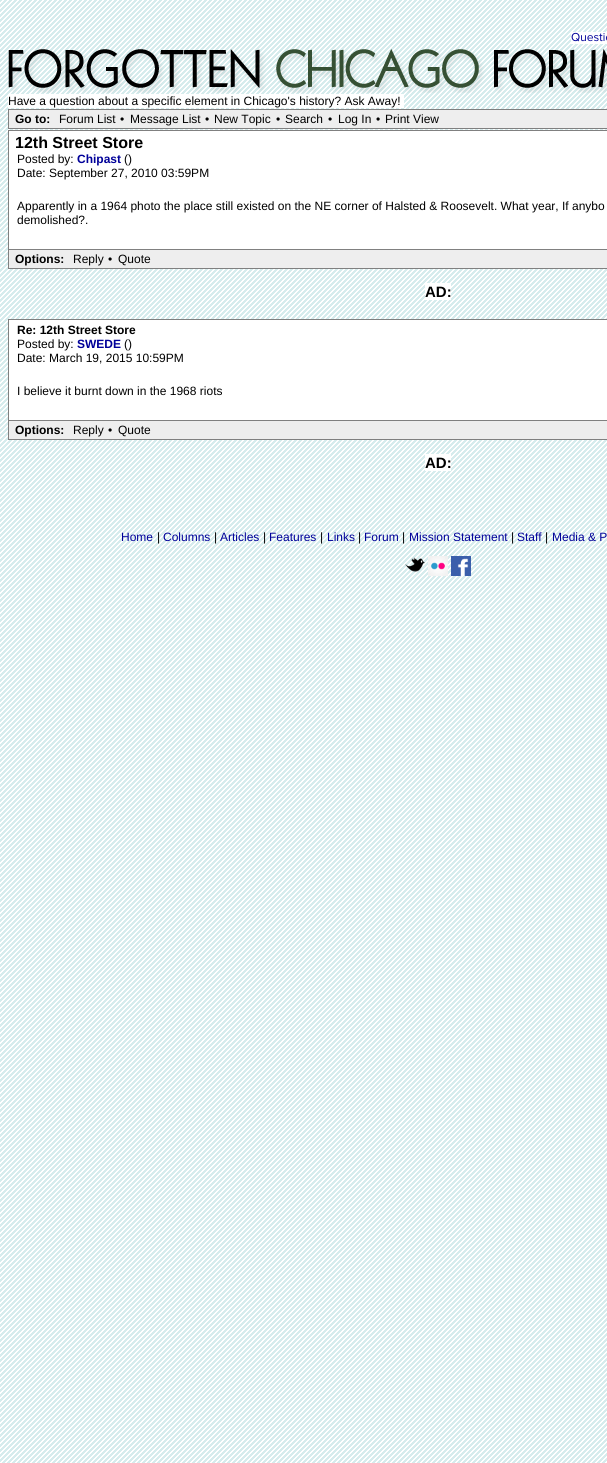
import math
import cairo

surface = cairo.ImageSurface(cairo.FORMAT_RGB24, 607, 1463)
ctx = cairo.Context(surface)
options = cairo.FontOptions()
options.set_hint_metrics(cairo.HINT_METRICS_OFF)
options.set_hint_style(cairo.HINT_STYLE_NONE)
ctx.set_font_options(options)
ctx.set_miter_limit(4)


def picture(path, x, y, w, h):
    ctx.save()
    ctx.set_source_surface(cairo.ImageSurface.create_from_png(path), x, y)
    ctx.rectangle(x, y, w, h)
    ctx.fill()
    ctx.restore()


ctx.set_source_rgb(1, 1, 1)
ctx.paint()
picture("img1.png", 0, 0, 607, 1463)
ctx.set_source_rgb(1, 1, 1)
ctx.rectangle(571, 32, 36, 12)
ctx.fill()
picture("img2.png", 571, 32, 36, 10)
picture("img3.png", 8, 49, 599, 44)
ctx.rectangle(8, 94, 396, 14)
ctx.fill()
ctx.select_font_face("Liberation Sans")
ctx.set_font_size(12)
ctx.set_source_rgb(0, 0, 0)
ctx.move_to(8, 105)
ctx.show_text("Have a question about a specific element in Chicago's history? Ask Away!")
ctx.set_source_rgb(0.933, 0.933, 0.933)
ctx.rectangle(8.5, 109.5, 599, 19)
ctx.fill_preserve()
ctx.set_source_rgb(0.502, 0.502, 0.502)
ctx.set_line_width(1)
ctx.stroke()
ctx.select_font_face("Liberation Sans", cairo.FONT_SLANT_NORMAL, cairo.FONT_WEIGHT_BOLD)
ctx.set_source_rgb(0, 0, 0)
ctx.move_to(15, 123)
ctx.show_text("Go to:")
ctx.select_font_face("Liberation Sans")
ctx.move_to(59, 123)
ctx.show_text("Forum List")
ctx.move_to(120, 123)
ctx.show_text("•")
ctx.move_to(130, 123)
ctx.show_text("Message List")
ctx.move_to(205, 123)
ctx.show_text("•")
ctx.move_to(214, 123)
ctx.show_text("New Topic")
ctx.move_to(276, 123)
ctx.show_text("•")
ctx.move_to(285, 123)
ctx.show_text("Search")
ctx.move_to(328, 123)
ctx.show_text("•")
ctx.move_to(338, 123)
ctx.show_text("Log In")
ctx.move_to(376, 123)
ctx.show_text("•")
ctx.move_to(385, 123)
ctx.show_text("Print View")
ctx.set_source_rgb(1, 1, 1)
ctx.rectangle(8.5, 130.5, 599, 119)
ctx.fill_preserve()
ctx.set_source_rgb(0.502, 0.502, 0.502)
ctx.stroke()
ctx.select_font_face("Liberation Sans", cairo.FONT_SLANT_NORMAL, cairo.FONT_WEIGHT_BOLD)
ctx.set_font_size(16)
ctx.set_source_rgb(0, 0, 0)
ctx.move_to(15, 148)
ctx.show_text("12th Street Store")
ctx.select_font_face("Liberation Sans")
ctx.set_font_size(12)
ctx.move_to(17, 163)
ctx.show_text("Posted by:")
ctx.select_font_face("Liberation Sans", cairo.FONT_SLANT_NORMAL, cairo.FONT_WEIGHT_BOLD)
ctx.set_source_rgb(0, 0, 0.6)
ctx.move_to(77, 163)
ctx.show_text("Chipast")
ctx.select_font_face("Liberation Sans")
ctx.set_source_rgb(0, 0, 0)
ctx.move_to(124, 163)
ctx.show_text("()")
ctx.move_to(17, 177)
ctx.show_text("Date: September 27, 2010 03:59PM")
ctx.move_to(17, 210)
ctx.show_text("Apparently in a 1964 photo the place still existed on the NE corner of Halsted & Roosevelt. What year, If anybo")
ctx.move_to(17, 224)
ctx.show_text("demolished?.")
ctx.set_source_rgb(0.933, 0.933, 0.933)
ctx.rectangle(9, 250, 598, 18)
ctx.fill()
ctx.set_source_rgb(0.502, 0.502, 0.502)
ctx.rectangle(8, 268, 599, 1)
ctx.fill()
ctx.rectangle(8, 250, 1, 19)
ctx.fill()
ctx.select_font_face("Liberation Sans", cairo.FONT_SLANT_NORMAL, cairo.FONT_WEIGHT_BOLD)
ctx.set_source_rgb(0, 0, 0)
ctx.move_to(15, 263)
ctx.show_text("Options:")
ctx.select_font_face("Liberation Sans")
ctx.move_to(73, 263)
ctx.show_text("Reply")
ctx.move_to(108, 263)
ctx.show_text("•")
ctx.move_to(118, 263)
ctx.show_text("Quote")
ctx.set_source_rgb(1, 1, 1)
ctx.rectangle(425, 283, 26, 17)
ctx.fill()
ctx.select_font_face("Liberation Sans", cairo.FONT_SLANT_NORMAL, cairo.FONT_WEIGHT_BOLD)
ctx.set_font_size(15)
ctx.set_source_rgb(0, 0, 0)
ctx.move_to(425, 297)
ctx.show_text("AD:")
ctx.set_source_rgb(1, 1, 1)
ctx.rectangle(8.5, 319.5, 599, 101)
ctx.fill_preserve()
ctx.set_source_rgb(0.502, 0.502, 0.502)
ctx.stroke()
ctx.set_font_size(12)
ctx.set_source_rgb(0, 0, 0)
ctx.move_to(17, 334)
ctx.show_text("Re: 12th Street Store")
ctx.select_font_face("Liberation Sans")
ctx.move_to(17, 348)
ctx.show_text("Posted by:")
ctx.select_font_face("Liberation Sans", cairo.FONT_SLANT_NORMAL, cairo.FONT_WEIGHT_BOLD)
ctx.set_source_rgb(0, 0, 0.6)
ctx.move_to(77, 348)
ctx.show_text("SWEDE")
ctx.select_font_face("Liberation Sans")
ctx.set_source_rgb(0, 0, 0)
ctx.move_to(124, 348)
ctx.show_text("()")
ctx.move_to(17, 362)
ctx.show_text("Date: March 19, 2015 10:59PM")
ctx.move_to(17, 395)
ctx.show_text("I believe it burnt down in the 1968 riots")
ctx.set_source_rgb(0.933, 0.933, 0.933)
ctx.rectangle(9, 421, 598, 18)
ctx.fill()
ctx.set_source_rgb(0.502, 0.502, 0.502)
ctx.rectangle(8, 439, 599, 1)
ctx.fill()
ctx.rectangle(8, 421, 1, 19)
ctx.fill()
ctx.select_font_face("Liberation Sans", cairo.FONT_SLANT_NORMAL, cairo.FONT_WEIGHT_BOLD)
ctx.set_source_rgb(0, 0, 0)
ctx.move_to(15, 434)
ctx.show_text("Options:")
ctx.select_font_face("Liberation Sans")
ctx.move_to(73, 434)
ctx.show_text("Reply")
ctx.move_to(108, 434)
ctx.show_text("•")
ctx.move_to(118, 434)
ctx.show_text("Quote")
ctx.set_source_rgb(1, 1, 1)
ctx.rectangle(425, 454, 26, 17)
ctx.fill()
ctx.select_font_face("Liberation Sans", cairo.FONT_SLANT_NORMAL, cairo.FONT_WEIGHT_BOLD)
ctx.set_font_size(15)
ctx.set_source_rgb(0, 0, 0)
ctx.move_to(425, 468)
ctx.show_text("AD:")
ctx.select_font_face("Liberation Sans")
ctx.set_font_size(12)
ctx.set_source_rgb(0, 0, 0.6)
ctx.move_to(121, 541)
ctx.show_text("Home")
ctx.set_source_rgb(0, 0, 0)
ctx.move_to(157, 541)
ctx.show_text("|")
ctx.set_source_rgb(0, 0, 0.6)
ctx.move_to(163, 541)
ctx.show_text("Columns")
ctx.set_source_rgb(0, 0, 0)
ctx.move_to(214, 541)
ctx.show_text("|")
ctx.set_source_rgb(0, 0, 0.6)
ctx.move_to(220, 541)
ctx.show_text("Articles")
ctx.set_source_rgb(0, 0, 0)
ctx.move_to(263, 541)
ctx.show_text("|")
ctx.set_source_rgb(0, 0, 0.6)
ctx.move_to(269, 541)
ctx.show_text("Features")
ctx.set_source_rgb(0, 0, 0)
ctx.move_to(320, 541)
ctx.show_text("|")
ctx.set_source_rgb(0, 0, 0.6)
ctx.move_to(327, 541)
ctx.show_text("Links")
ctx.set_source_rgb(0, 0, 0)
ctx.move_to(358, 541)
ctx.show_text("|")
ctx.set_source_rgb(0, 0, 0.6)
ctx.move_to(364, 541)
ctx.show_text("Forum")
ctx.set_source_rgb(0, 0, 0)
ctx.move_to(402, 541)
ctx.show_text("|")
ctx.set_source_rgb(0, 0, 0.6)
ctx.move_to(409, 541)
ctx.show_text("Mission Statement")
ctx.set_source_rgb(0, 0, 0)
ctx.move_to(511, 541)
ctx.show_text("|")
ctx.set_source_rgb(0, 0, 0.6)
ctx.move_to(517, 541)
ctx.show_text("Staff")
ctx.set_source_rgb(0, 0, 0)
ctx.move_to(545, 541)
ctx.show_text("|")
ctx.set_source_rgb(0, 0, 0.6)
ctx.move_to(552, 541)
ctx.show_text("Media & P")
picture("img4.png", 405, 557, 20, 15)
picture("img5.png", 428, 556, 20, 20)
picture("img6.png", 451, 556, 20, 20)
surface.write_to_png("page.png")
